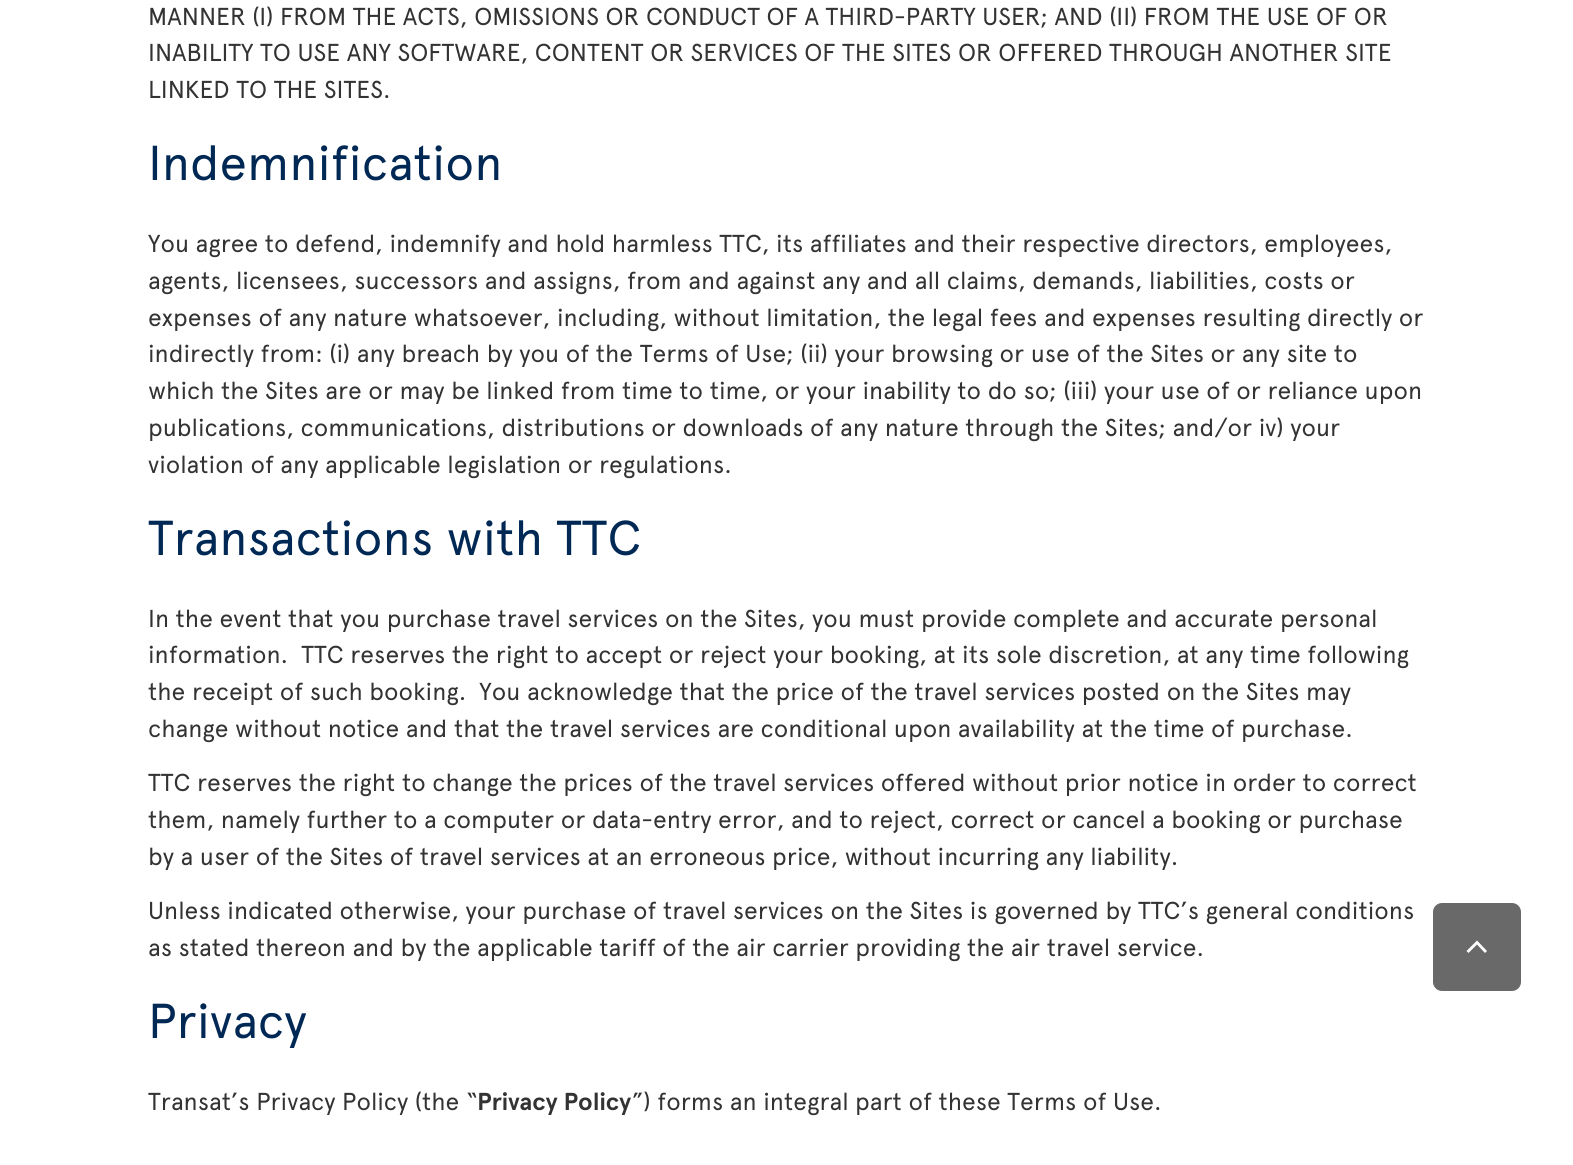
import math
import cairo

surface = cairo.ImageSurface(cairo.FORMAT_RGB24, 1573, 1165)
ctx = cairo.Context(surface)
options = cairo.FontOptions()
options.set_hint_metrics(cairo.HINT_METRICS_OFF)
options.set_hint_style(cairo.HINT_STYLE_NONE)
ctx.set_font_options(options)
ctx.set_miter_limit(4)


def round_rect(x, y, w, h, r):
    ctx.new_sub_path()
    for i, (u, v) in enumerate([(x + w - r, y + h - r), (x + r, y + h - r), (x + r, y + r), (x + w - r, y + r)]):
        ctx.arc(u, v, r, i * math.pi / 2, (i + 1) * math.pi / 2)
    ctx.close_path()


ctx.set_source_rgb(1, 1, 1)
ctx.paint()
ctx.select_font_face("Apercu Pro")
ctx.set_font_size(24.5)
ctx.set_source_rgb(0.2, 0.2, 0.2)
ctx.move_to(148, 25)
ctx.show_text("MANNER (I) FROM THE ACTS, OMISSIONS OR CONDUCT OF A THIRD-PARTY USER; AND (II) FROM THE USE OF OR")
ctx.move_to(148, 61)
ctx.show_text("INABILITY TO USE ANY SOFTWARE, CONTENT OR SERVICES OF THE SITES OR OFFERED THROUGH ANOTHER SITE")
ctx.move_to(148, 98)
ctx.show_text("LINKED TO THE SITES.")
ctx.set_font_size(49)
ctx.set_source_rgb(0, 0.157, 0.333)
ctx.move_to(148, 180)
ctx.show_text("Indemnification")
ctx.set_font_size(24.5)
ctx.set_source_rgb(0.2, 0.2, 0.2)
ctx.move_to(148, 252)
ctx.show_text("You agree to defend, indemnify and hold harmless TTC, its affiliates and their respective directors, employees,")
ctx.move_to(148, 289)
ctx.show_text("agents, licensees, successors and assigns, from and against any and all claims, demands, liabilities, costs or")
ctx.move_to(148, 326)
ctx.show_text("expenses of any nature whatsoever, including, without limitation, the legal fees and expenses resulting directly or")
ctx.move_to(148, 362)
ctx.show_text("indirectly from: (i) any breach by you of the Terms of Use; (ii) your browsing or use of the Sites or any site to")
ctx.move_to(148, 399)
ctx.show_text("which the Sites are or may be linked from time to time, or your inability to do so; (iii) your use of or reliance upon")
ctx.move_to(148, 436)
ctx.show_text("publications, communications, distributions or downloads of any nature through the Sites; and/or iv) your")
ctx.move_to(148, 473)
ctx.show_text("violation of any applicable legislation or regulations.")
ctx.set_font_size(49)
ctx.set_source_rgb(0, 0.157, 0.333)
ctx.move_to(148, 555)
ctx.show_text("Transactions with TTC")
ctx.set_font_size(24.5)
ctx.set_source_rgb(0.2, 0.2, 0.2)
ctx.move_to(148, 627)
ctx.show_text("In the event that you purchase travel services on the Sites, you must provide complete and accurate personal")
ctx.move_to(148, 663)
ctx.show_text("information.  TTC reserves the right to accept or reject your booking, at its sole discretion, at any time following")
ctx.move_to(148, 700)
ctx.show_text("the receipt of such booking.  You acknowledge that the price of the travel services posted on the Sites may")
ctx.move_to(148, 737)
ctx.show_text("change without notice and that the travel services are conditional upon availability at the time of purchase.")
ctx.move_to(148, 791)
ctx.show_text("TTC reserves the right to change the prices of the travel services offered without prior notice in order to correct")
ctx.move_to(148, 828)
ctx.show_text("them, namely further to a computer or data-entry error, and to reject, correct or cancel a booking or purchase")
ctx.move_to(148, 865)
ctx.show_text("by a user of the Sites of travel services at an erroneous price, without incurring any liability.")
ctx.move_to(148, 919)
ctx.show_text("Unless indicated otherwise, your purchase of travel services on the Sites is governed by TTC’s general conditions")
ctx.move_to(148, 956)
ctx.show_text("as stated thereon and by the applicable tariff of the air carrier providing the air travel service.")
ctx.set_font_size(49)
ctx.set_source_rgb(0, 0.157, 0.333)
ctx.move_to(148, 1038)
ctx.show_text("Privacy")
ctx.set_font_size(24.5)
ctx.set_source_rgb(0.2, 0.2, 0.2)
ctx.move_to(148, 1110)
ctx.show_text("Transat’s Privacy Policy (the “")
ctx.select_font_face("Apercu Pro", cairo.FONT_SLANT_NORMAL, cairo.FONT_WEIGHT_BOLD)
ctx.move_to(477, 1110)
ctx.show_text("Privacy Policy")
ctx.select_font_face("Apercu Pro")
ctx.move_to(632, 1110)
ctx.show_text("”) forms an integral part of these Terms of Use.")
ctx.set_source_rgb(0.412, 0.412, 0.412)
round_rect(1433, 903, 88, 88, 9)
ctx.fill()
ctx.set_source_rgb(1, 1, 1)
ctx.new_path()
ctx.move_to(1466.5, 951)
ctx.line_to(1468.5, 953)
ctx.line_to(1477, 944.5)
ctx.line_to(1485, 953)
ctx.line_to(1487, 951)
ctx.line_to(1477, 940.5)
ctx.close_path()
ctx.fill()
surface.write_to_png("page.png")
